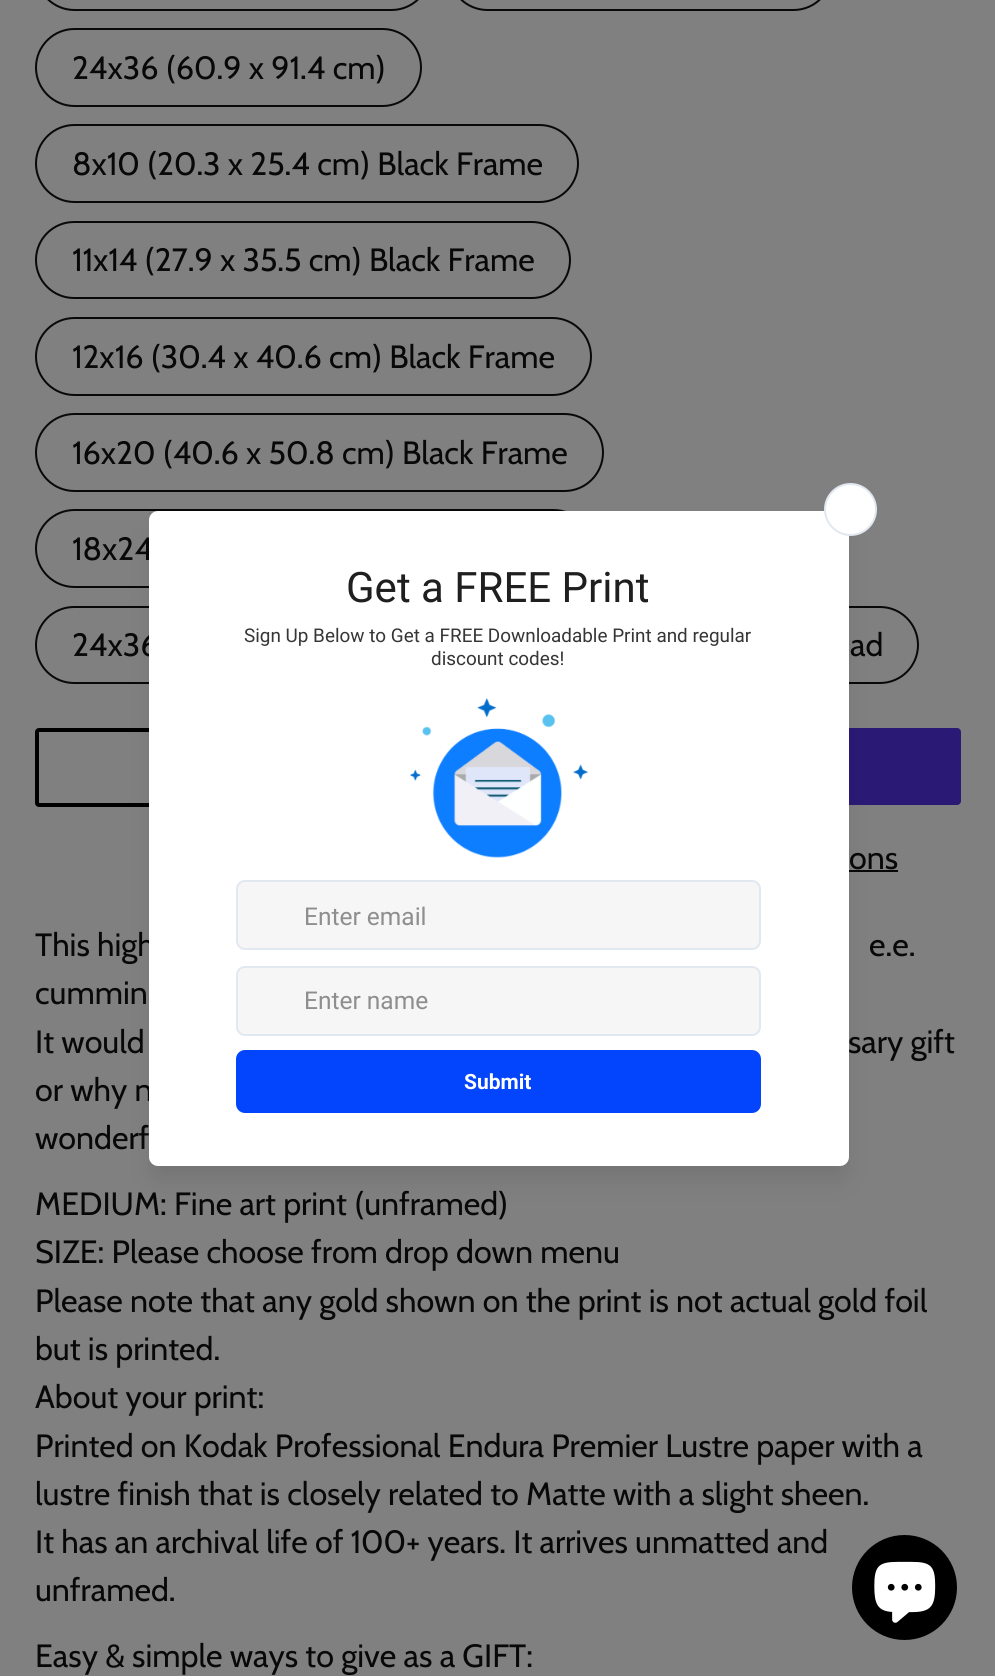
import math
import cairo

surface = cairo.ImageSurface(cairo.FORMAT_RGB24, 995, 1676)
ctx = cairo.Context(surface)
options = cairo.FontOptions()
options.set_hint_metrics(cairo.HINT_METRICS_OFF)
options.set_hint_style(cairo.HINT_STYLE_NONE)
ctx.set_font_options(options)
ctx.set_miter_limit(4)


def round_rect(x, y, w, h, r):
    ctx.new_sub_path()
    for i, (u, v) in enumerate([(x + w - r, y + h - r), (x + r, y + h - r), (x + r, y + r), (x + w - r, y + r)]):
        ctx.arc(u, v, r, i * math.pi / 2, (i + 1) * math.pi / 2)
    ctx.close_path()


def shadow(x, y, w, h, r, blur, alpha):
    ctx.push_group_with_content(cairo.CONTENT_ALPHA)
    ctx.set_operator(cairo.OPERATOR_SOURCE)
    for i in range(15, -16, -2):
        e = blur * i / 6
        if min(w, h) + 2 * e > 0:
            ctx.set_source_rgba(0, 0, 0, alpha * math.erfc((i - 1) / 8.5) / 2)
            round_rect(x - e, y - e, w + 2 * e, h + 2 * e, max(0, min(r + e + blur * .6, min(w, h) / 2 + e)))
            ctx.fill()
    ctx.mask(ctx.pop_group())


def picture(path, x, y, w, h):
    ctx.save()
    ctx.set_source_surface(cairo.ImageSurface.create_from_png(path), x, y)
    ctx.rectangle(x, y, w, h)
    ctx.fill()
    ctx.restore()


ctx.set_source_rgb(0.502, 0.502, 0.502)
ctx.paint()
round_rect(36, -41, 394, 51, 38.5)
ctx.set_source_rgb(0.035, 0.035, 0.035)
ctx.stroke()
round_rect(449, -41, 383, 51, 38.5)
ctx.stroke()
round_rect(36, 29, 385, 77, 38.5)
ctx.stroke()
ctx.select_font_face("Cabin")
ctx.set_font_size(32.2)
ctx.move_to(72, 79)
ctx.show_text("24x36 (60.9 x 91.4 cm)")
round_rect(36, 125, 542, 77, 38.5)
ctx.stroke()
ctx.move_to(72, 175)
ctx.show_text("8x10 (20.3 x 25.4 cm) Black Frame")
round_rect(36, 222, 534, 76, 38)
ctx.stroke()
ctx.move_to(72, 271)
ctx.show_text("11x14 (27.9 x 35.5 cm) Black Frame")
round_rect(36, 318, 555, 77, 38.5)
ctx.stroke()
ctx.move_to(72, 368)
ctx.show_text("12x16 (30.4 x 40.6 cm) Black Frame")
round_rect(36, 414, 567, 77, 38.5)
ctx.stroke()
ctx.move_to(72, 464)
ctx.show_text("16x20 (40.6 x 50.8 cm) Black Frame")
round_rect(36, 510, 556, 77, 38.5)
ctx.stroke()
ctx.move_to(72, 560)
ctx.show_text("18x24")
round_rect(36, 607, 558, 76, 38)
ctx.stroke()
ctx.move_to(72, 656)
ctx.show_text("24x36")
round_rect(612, 607, 306, 76, 38)
ctx.stroke()
ctx.move_to(850, 656)
ctx.show_text("ad")
round_rect(37, 730, 469, 75, 2)
ctx.set_source_rgb(0, 0, 0)
ctx.set_line_width(4)
ctx.stroke()
ctx.set_source_rgb(0.165, 0.102, 0.463)
round_rect(525, 728, 436, 77, 4)
ctx.fill()
ctx.set_source_rgb(0.035, 0.035, 0.035)
ctx.move_to(849, 869)
ctx.show_text("ons")
ctx.rectangle(849, 870, 49, 2)
ctx.fill()
ctx.move_to(35, 956)
ctx.show_text("This high")
ctx.move_to(869, 956)
ctx.show_text("e.e.")
ctx.move_to(35, 1004)
ctx.show_text("cummin")
ctx.move_to(35, 1053)
ctx.show_text("It would")
ctx.move_to(848, 1053)
ctx.show_text("sary gift")
ctx.move_to(35, 1101)
ctx.show_text("or why n")
ctx.move_to(35, 1149)
ctx.show_text("wonderf")
ctx.move_to(35, 1215)
ctx.show_text("MEDIUM: Fine art print (unframed)")
ctx.move_to(35, 1263)
ctx.show_text("SIZE: Please choose from drop down menu")
ctx.move_to(35, 1312)
ctx.show_text("Please note that any gold shown on the print is not actual gold foil")
ctx.move_to(35, 1360)
ctx.show_text("but is printed.")
ctx.move_to(35, 1408)
ctx.show_text("About your print:")
ctx.move_to(35, 1457)
ctx.show_text("Printed on Kodak Professional Endura Premier Lustre paper with a")
ctx.move_to(35, 1505)
ctx.show_text("lustre finish that is closely related to Matte with a slight sheen.")
ctx.move_to(35, 1553)
ctx.show_text("It has an archival life of 100+ years. It arrives unmatted and")
ctx.move_to(35, 1601)
ctx.show_text("unframed.")
ctx.move_to(35, 1667)
ctx.show_text("Easy & simple ways to give as a GIFT:")
ctx.set_source_rgb(0, 0, 0)
shadow(154, 534, 690, 644, 4, 13, 0.1)
ctx.save()
ctx.rectangle(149, 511, 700, 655)
ctx.clip()
shadow(154, 516, 690, 644, 4, 17.5, 0.12)
ctx.restore()
ctx.set_source_rgb(1, 1, 1)
round_rect(149, 511, 700, 655, 9)
ctx.fill()
ctx.arc(850.5, 509.5, 25.5, 0, 2 * math.pi)
ctx.fill_preserve()
ctx.set_source_rgb(0.886, 0.91, 0.941)
ctx.set_line_width(2)
ctx.stroke()
ctx.select_font_face("Roboto")
ctx.set_font_size(42)
ctx.set_source_rgb(0.122, 0.122, 0.122)
ctx.move_to(346, 602)
ctx.show_text("Get a FREE Print")
ctx.set_font_size(18.9)
ctx.set_source_rgb(0.212, 0.212, 0.212)
ctx.move_to(244, 642)
ctx.show_text("Sign Up Below to Get a FREE Downloadable Print and regular")
ctx.move_to(431, 665)
ctx.show_text("discount codes!")
picture("img1.png", 410, 698, 178, 160)
ctx.set_source_rgb(0.961, 0.961, 0.961)
round_rect(237, 881, 523, 68, 8)
ctx.fill_preserve()
ctx.set_source_rgb(0.886, 0.91, 0.941)
ctx.stroke()
ctx.set_font_size(24.5)
ctx.set_source_rgb(0.557, 0.557, 0.557)
ctx.move_to(304, 925)
ctx.show_text("Enter email")
ctx.set_source_rgb(0.961, 0.961, 0.961)
round_rect(237, 967, 523, 68, 8)
ctx.fill_preserve()
ctx.set_source_rgb(0.886, 0.91, 0.941)
ctx.stroke()
ctx.set_source_rgb(0.557, 0.557, 0.557)
ctx.move_to(304, 1009)
ctx.show_text("Enter name")
ctx.set_source_rgb(0.012, 0.271, 0.988)
round_rect(236, 1050, 525, 63, 9)
ctx.fill()
ctx.select_font_face("Roboto", cairo.FONT_SLANT_NORMAL, cairo.FONT_WEIGHT_BOLD)
ctx.set_font_size(21)
ctx.set_source_rgb(1, 1, 1)
ctx.move_to(464, 1089)
ctx.show_text("Submit")
ctx.set_source_rgb(0, 0, 0)
ctx.new_path()
ctx.arc(904.5, 1587.5, 52.5, 0, 2 * math.pi)
ctx.fill()
picture("img2.png", 874, 1561, 62, 62)
surface.write_to_png("page.png")
